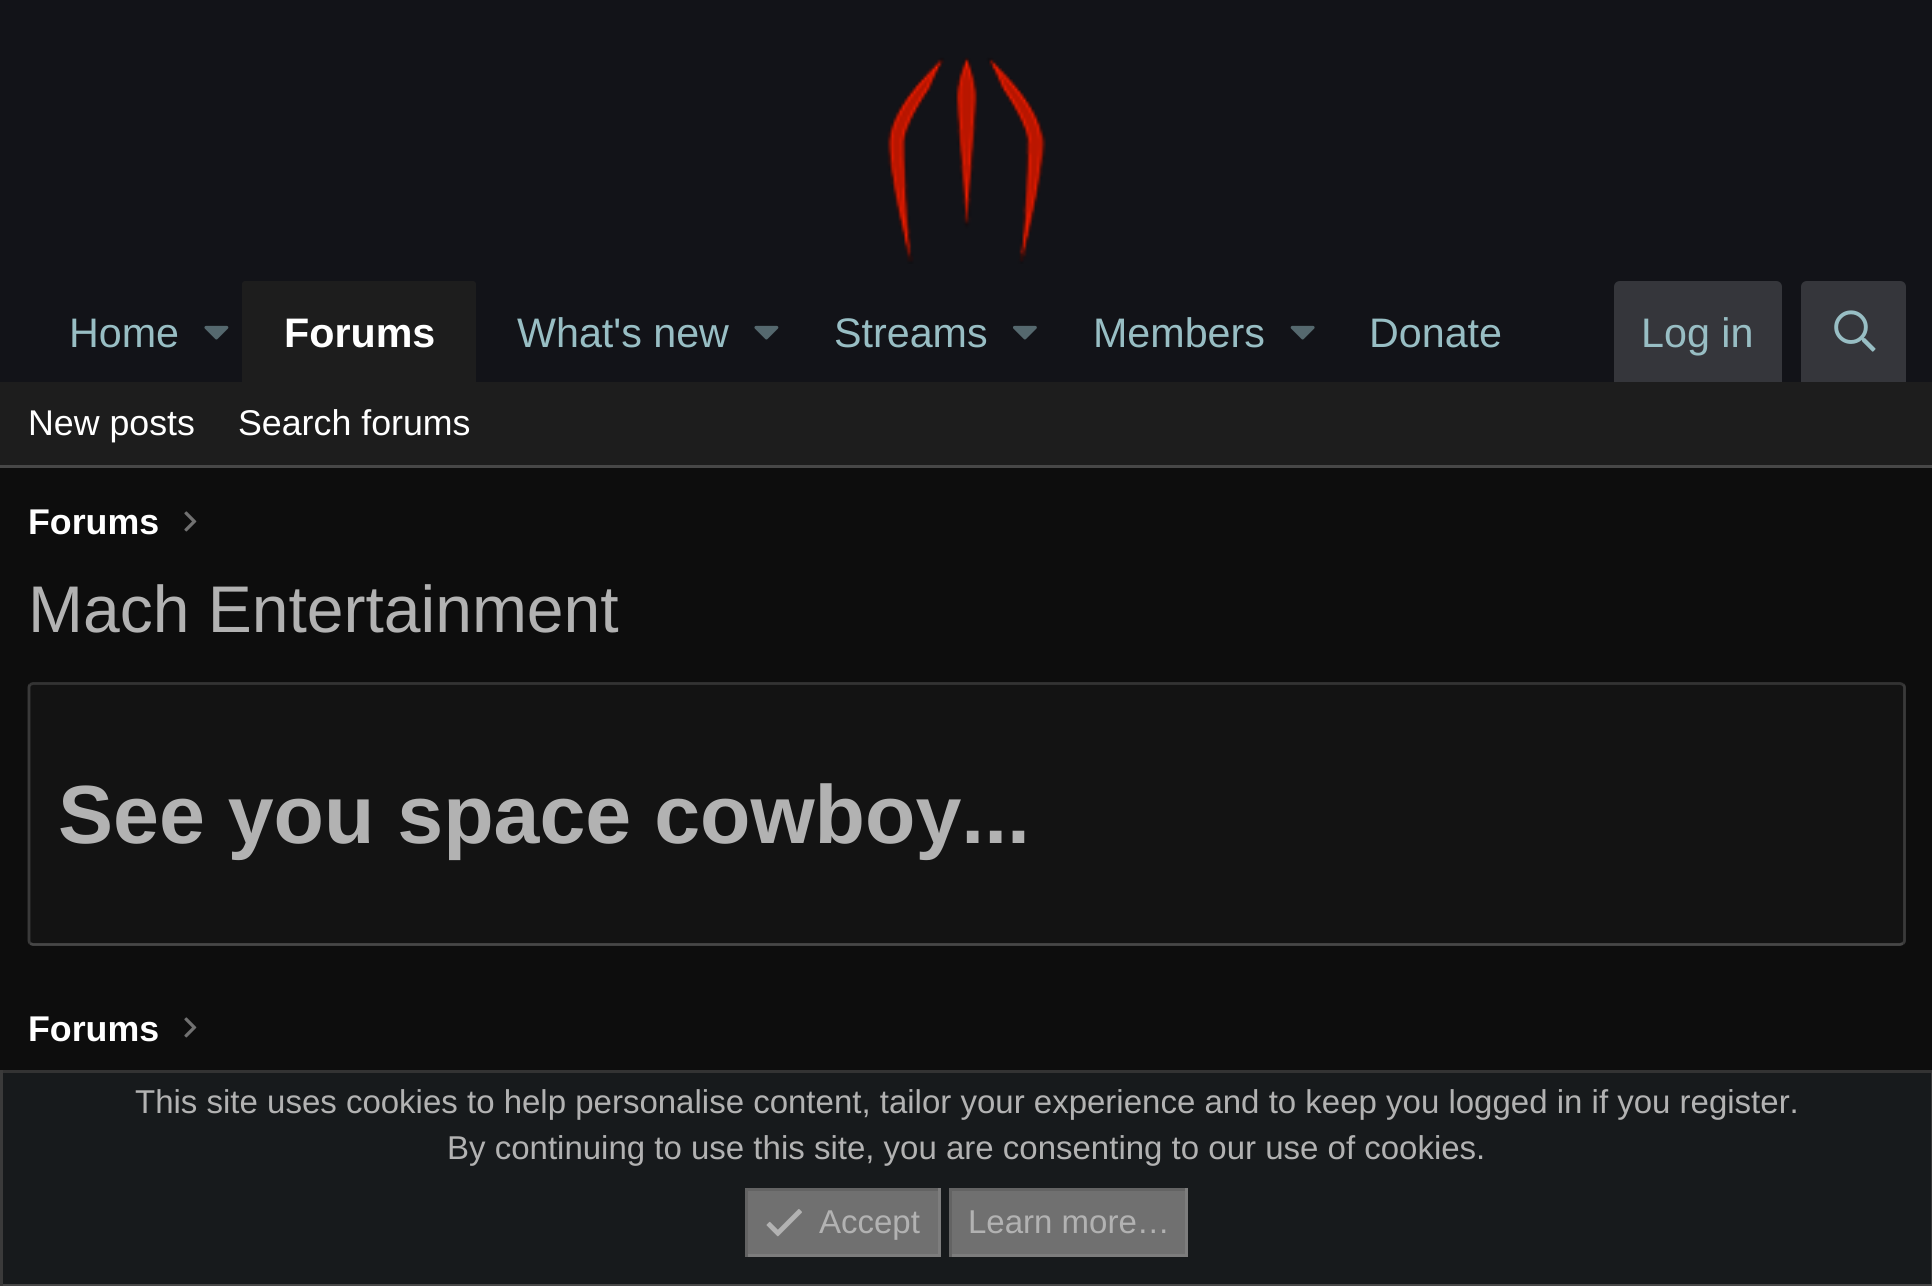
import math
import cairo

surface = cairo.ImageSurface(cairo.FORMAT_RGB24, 1932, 1286)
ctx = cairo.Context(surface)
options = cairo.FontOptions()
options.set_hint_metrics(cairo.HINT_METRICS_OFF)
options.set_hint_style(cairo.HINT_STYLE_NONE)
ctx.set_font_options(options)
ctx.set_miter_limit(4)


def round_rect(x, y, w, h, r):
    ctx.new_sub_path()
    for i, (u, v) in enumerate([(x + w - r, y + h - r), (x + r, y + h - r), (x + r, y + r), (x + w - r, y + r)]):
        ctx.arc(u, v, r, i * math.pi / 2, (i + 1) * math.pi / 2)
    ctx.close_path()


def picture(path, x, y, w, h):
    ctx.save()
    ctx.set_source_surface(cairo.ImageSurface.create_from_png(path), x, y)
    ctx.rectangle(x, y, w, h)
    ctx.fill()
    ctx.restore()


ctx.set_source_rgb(0.051, 0.051, 0.051)
ctx.paint()
ctx.set_source_rgb(0.071, 0.075, 0.094)
ctx.rectangle(0, 0, 1932, 382)
ctx.fill()
picture("img1.png", 887, 57, 159, 207)
ctx.select_font_face("Liberation Sans")
ctx.set_font_size(41.25)
ctx.set_source_rgb(0.596, 0.745, 0.769)
ctx.move_to(69, 347)
ctx.show_text("Home")
picture("img2.png", 204, 325, 25, 15)
ctx.set_source_rgb(0.114, 0.114, 0.114)
ctx.new_path()
ctx.move_to(245, 281)
ctx.line_to(473, 281)
ctx.curve_to(474.5, 281, 476, 282.5, 476, 284)
ctx.line_to(476, 382)
ctx.line_to(242, 382)
ctx.line_to(242, 284)
ctx.curve_to(242, 282.5, 243.5, 281, 245, 281)
ctx.close_path()
ctx.fill()
ctx.select_font_face("Liberation Sans", cairo.FONT_SLANT_NORMAL, cairo.FONT_WEIGHT_BOLD)
ctx.set_source_rgb(1, 1, 1)
ctx.move_to(284, 347)
ctx.show_text("Forums")
ctx.select_font_face("Liberation Sans")
ctx.set_source_rgb(0.596, 0.745, 0.769)
ctx.move_to(517, 347)
ctx.show_text("What's new")
picture("img2.png", 754, 325, 25, 15)
ctx.move_to(834, 347)
ctx.show_text("Streams")
picture("img3.png", 1013, 325, 24, 15)
ctx.move_to(1093, 347)
ctx.show_text("Members")
picture("img4.png", 1290, 325, 25, 15)
ctx.move_to(1369, 347)
ctx.show_text("Donate")
ctx.set_source_rgb(0.208, 0.212, 0.231)
ctx.new_path()
ctx.move_to(1620, 281)
ctx.line_to(1776, 281)
ctx.curve_to(1779.5, 281, 1782, 283.5, 1782, 287)
ctx.line_to(1782, 382)
ctx.line_to(1614, 382)
ctx.line_to(1614, 287)
ctx.curve_to(1614, 283.5, 1616.5, 281, 1620, 281)
ctx.close_path()
ctx.fill()
ctx.set_source_rgb(0.596, 0.745, 0.769)
ctx.move_to(1641, 347)
ctx.show_text("Log in")
ctx.set_source_rgb(0.208, 0.212, 0.231)
ctx.new_path()
ctx.move_to(1807, 281)
ctx.line_to(1900, 281)
ctx.curve_to(1903.5, 281, 1906, 283.5, 1906, 287)
ctx.line_to(1906, 382)
ctx.line_to(1801, 382)
ctx.line_to(1801, 287)
ctx.curve_to(1801, 283.5, 1803.5, 281, 1807, 281)
ctx.close_path()
ctx.fill()
picture("img5.png", 1834, 310, 42, 42)
ctx.set_source_rgb(0.114, 0.114, 0.114)
ctx.rectangle(0, 382, 1932, 83)
ctx.fill()
ctx.set_source_rgb(0.278, 0.278, 0.278)
ctx.rectangle(0, 465, 1932, 3)
ctx.fill()
ctx.set_font_size(35.75)
ctx.set_source_rgb(1, 1, 1)
ctx.move_to(28, 435)
ctx.show_text("New posts")
ctx.move_to(238, 435)
ctx.show_text("Search forums")
ctx.select_font_face("Liberation Sans", cairo.FONT_SLANT_NORMAL, cairo.FONT_WEIGHT_BOLD)
ctx.move_to(28, 534)
ctx.show_text("Forums")
picture("img6.png", 184, 511, 13, 21)
ctx.select_font_face("Liberation Sans")
ctx.set_font_size(66)
ctx.set_source_rgb(0.698, 0.698, 0.698)
ctx.move_to(28, 632)
ctx.show_text("Mach Entertainment")
ctx.set_source_rgb(0.078, 0.078, 0.078)
round_rect(28, 682, 1878, 264, 6)
ctx.fill()
ctx.new_path()
ctx.move_to(30, 684.5)
ctx.line_to(33, 683.5)
ctx.line_to(1900, 683.5)
ctx.line_to(1903, 684.5)
ctx.set_source_rgb(0.2, 0.2, 0.2)
ctx.set_line_width(2.8)
ctx.stroke()
ctx.new_path()
ctx.move_to(1903, 684.5)
ctx.curve_to(1904, 685.5, 1904.5, 686.5, 1904.5, 687.5)
ctx.line_to(1904.5, 940.5)
ctx.curve_to(1904.5, 941.5, 1904, 942.5, 1903, 943.5)
ctx.set_source_rgb(0.227, 0.227, 0.227)
ctx.stroke()
ctx.new_path()
ctx.move_to(1903, 943.5)
ctx.line_to(1900, 944.5)
ctx.line_to(33, 944.5)
ctx.line_to(30, 943.5)
ctx.set_source_rgb(0.278, 0.278, 0.278)
ctx.stroke()
ctx.new_path()
ctx.move_to(30, 943.5)
ctx.curve_to(29.5, 942.5, 29, 941.5, 29, 940.5)
ctx.line_to(29, 687.5)
ctx.curve_to(29, 686.5, 29.5, 685.5, 30, 684.5)
ctx.set_source_rgb(0.227, 0.227, 0.227)
ctx.stroke()
ctx.select_font_face("Liberation Sans", cairo.FONT_SLANT_NORMAL, cairo.FONT_WEIGHT_BOLD)
ctx.set_font_size(82.5)
ctx.set_source_rgb(0.698, 0.698, 0.698)
ctx.move_to(58, 843)
ctx.show_text("See you space cowboy...")
ctx.set_font_size(35.75)
ctx.set_source_rgb(1, 1, 1)
ctx.move_to(28, 1041)
ctx.show_text("Forums")
picture("img6.png", 184, 1017, 13, 21)
ctx.set_source_rgb(0.09, 0.102, 0.11)
ctx.rectangle(3, 1073, 1928, 211)
ctx.fill()
ctx.set_source_rgb(0.2, 0.2, 0.2)
ctx.rectangle(0, 1070, 1932, 3)
ctx.fill()
ctx.set_source_rgb(0.227, 0.227, 0.227)
ctx.rectangle(1931, 1070, 1, 216)
ctx.fill()
ctx.set_source_rgb(0.278, 0.278, 0.278)
ctx.rectangle(0, 1284, 1932, 2)
ctx.fill()
ctx.set_source_rgb(0.227, 0.227, 0.227)
ctx.rectangle(0, 1070, 3, 216)
ctx.fill()
ctx.select_font_face("Liberation Sans")
ctx.set_font_size(33)
ctx.set_source_rgb(0.698, 0.698, 0.698)
ctx.move_to(135, 1113)
ctx.show_text("This site uses cookies to help personalise content, tailor your experience and to keep you logged in if you register.")
ctx.move_to(447, 1159)
ctx.show_text("By continuing to use this site, you are consenting to our use of cookies.")
ctx.set_source_rgb(0.439, 0.439, 0.439)
ctx.rectangle(748, 1191, 190, 63)
ctx.fill()
ctx.set_source_rgb(0.388, 0.388, 0.388)
ctx.rectangle(745, 1188, 196, 3)
ctx.fill()
ctx.set_source_rgb(0.49, 0.49, 0.49)
ctx.rectangle(938, 1188, 3, 69)
ctx.fill()
ctx.rectangle(745, 1254, 196, 3)
ctx.fill()
ctx.set_source_rgb(0.388, 0.388, 0.388)
ctx.rectangle(745, 1188, 3, 69)
ctx.fill()
picture("img7.png", 766, 1209, 36, 28)
ctx.set_source_rgb(0.698, 0.698, 0.698)
ctx.move_to(819, 1233)
ctx.show_text("Accept")
ctx.set_source_rgb(0.439, 0.439, 0.439)
ctx.rectangle(952, 1191, 233, 63)
ctx.fill()
ctx.set_source_rgb(0.388, 0.388, 0.388)
ctx.rectangle(949, 1188, 239, 3)
ctx.fill()
ctx.set_source_rgb(0.49, 0.49, 0.49)
ctx.rectangle(1185, 1188, 3, 69)
ctx.fill()
ctx.rectangle(949, 1254, 239, 3)
ctx.fill()
ctx.set_source_rgb(0.388, 0.388, 0.388)
ctx.rectangle(949, 1188, 3, 69)
ctx.fill()
ctx.set_source_rgb(0.698, 0.698, 0.698)
ctx.move_to(968, 1233)
ctx.show_text("Learn more…")
surface.write_to_png("page.png")
